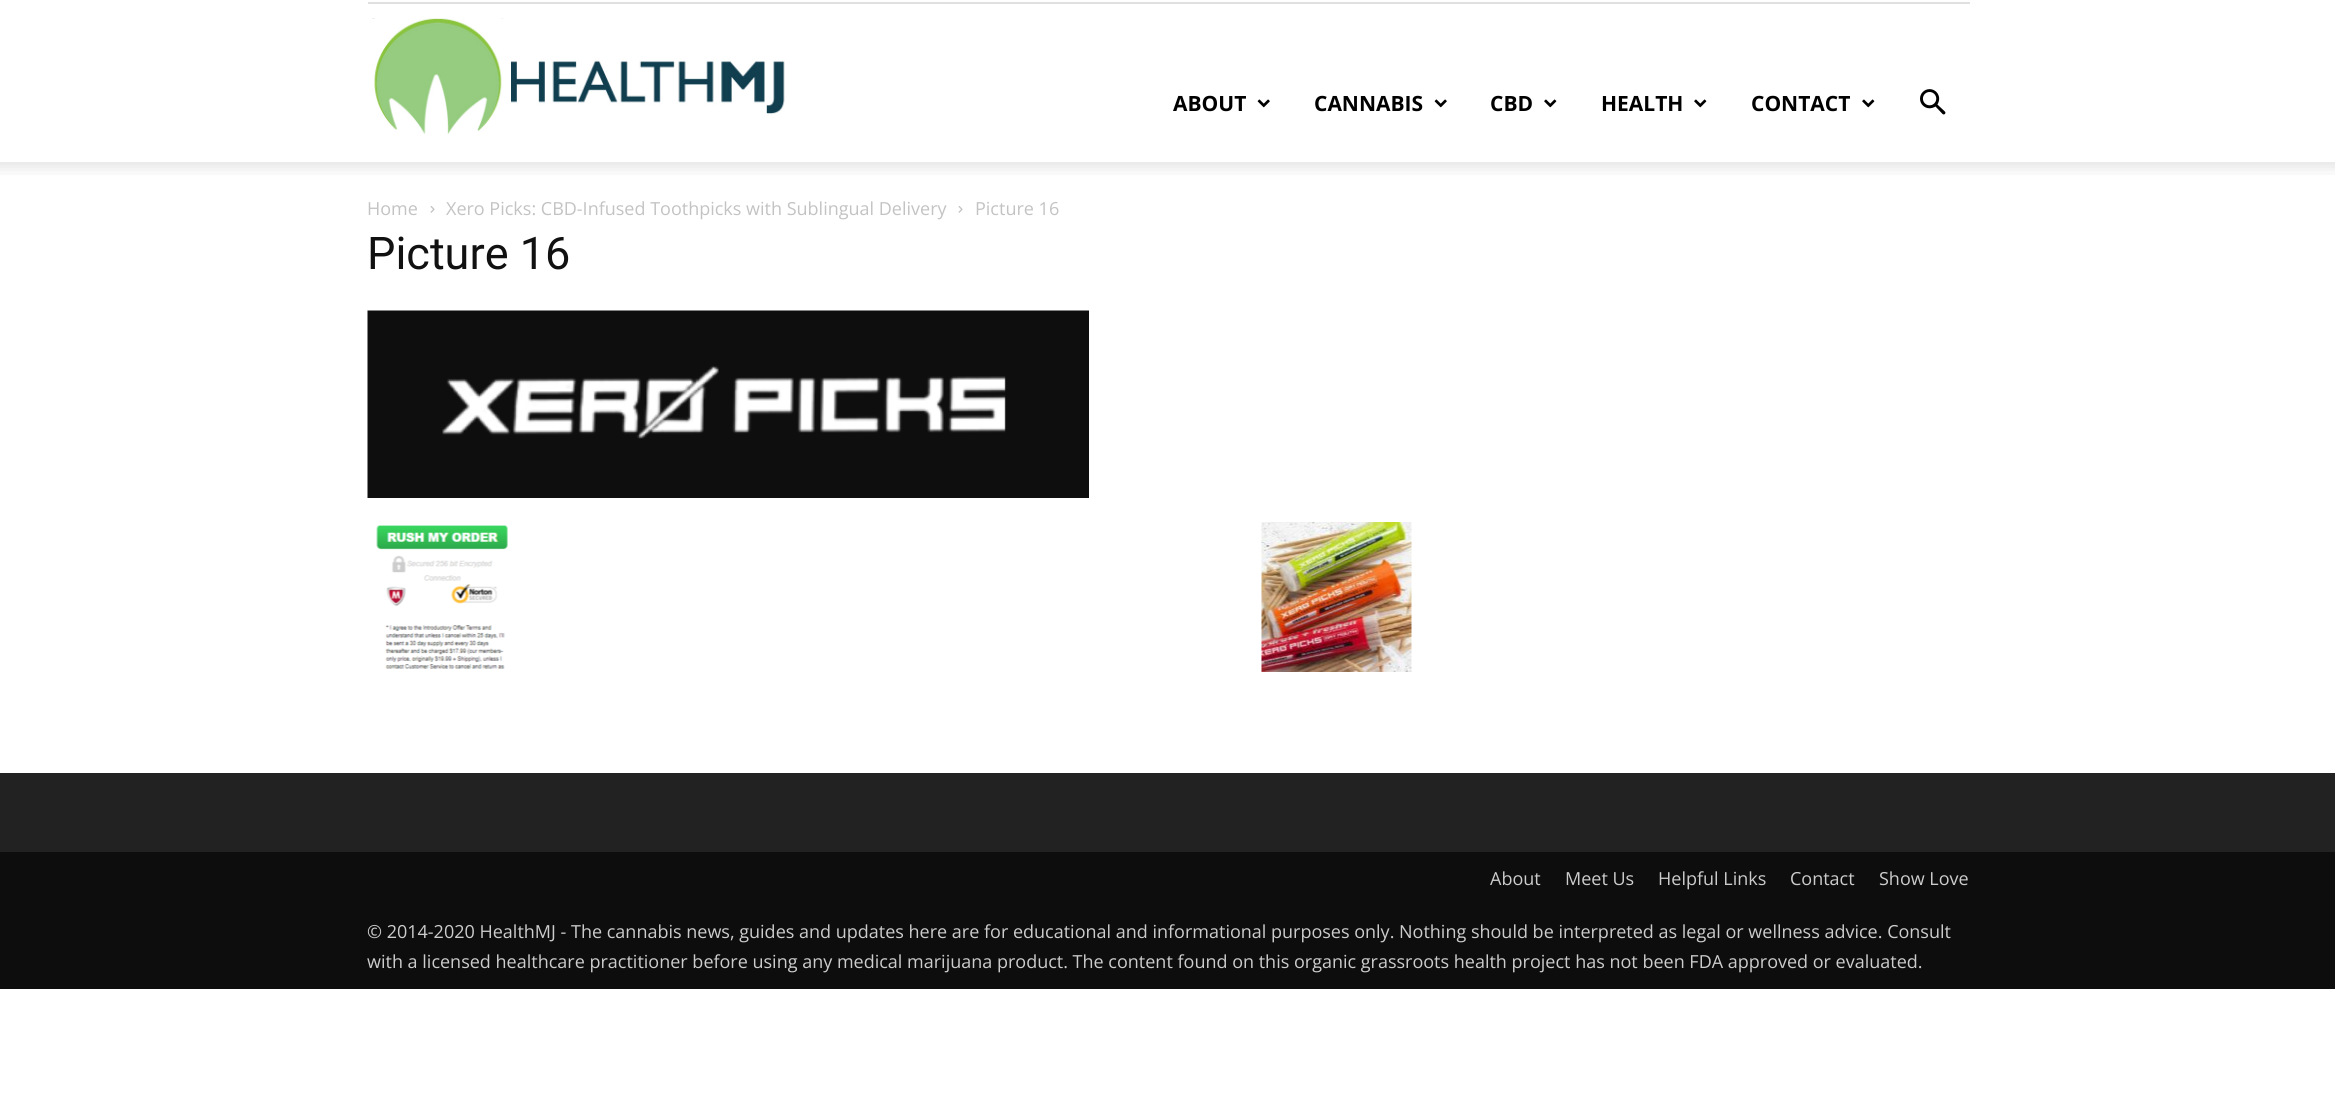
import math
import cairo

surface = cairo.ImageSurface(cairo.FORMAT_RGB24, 2335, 1099)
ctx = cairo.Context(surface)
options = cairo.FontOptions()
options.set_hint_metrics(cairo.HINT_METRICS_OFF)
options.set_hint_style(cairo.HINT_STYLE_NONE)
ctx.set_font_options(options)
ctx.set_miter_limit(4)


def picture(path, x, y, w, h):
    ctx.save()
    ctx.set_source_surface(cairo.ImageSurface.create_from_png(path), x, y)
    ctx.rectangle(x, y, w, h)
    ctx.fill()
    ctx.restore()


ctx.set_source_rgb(1, 1, 1)
ctx.paint()
ctx.set_source_rgb(0.878, 0.878, 0.878)
ctx.rectangle(368, 2, 1602, 2)
ctx.fill()
picture("img1.png", 372, 18, 413, 116)
ctx.select_font_face("Open Sans", cairo.FONT_SLANT_NORMAL, cairo.FONT_WEIGHT_BOLD)
ctx.set_font_size(21)
ctx.set_source_rgb(0, 0, 0)
ctx.move_to(1173, 111)
ctx.show_text("ABOUT")
picture("img2.png", 1257, 99, 13, 9)
ctx.move_to(1314, 111)
ctx.show_text("CANNABIS")
picture("img2.png", 1434, 99, 13, 9)
ctx.move_to(1490, 111)
ctx.show_text("CBD")
picture("img3.png", 1544, 99, 13, 9)
ctx.move_to(1601, 111)
ctx.show_text("HEALTH")
picture("img3.png", 1694, 99, 13, 9)
ctx.move_to(1751, 111)
ctx.show_text("CONTACT")
picture("img3.png", 1862, 99, 13, 9)
picture("img4.png", 1920, 89, 26, 26)
picture("img5.png", 0, 162, 2335, 13)
ctx.select_font_face("Open Sans")
ctx.set_font_size(18)
ctx.set_source_rgb(0.765, 0.765, 0.765)
ctx.move_to(367, 215)
ctx.show_text("Home")
picture("img6.png", 430, 206, 5, 7)
ctx.move_to(446, 215)
ctx.show_text("Xero Picks: CBD-Infused Toothpicks with Sublingual Delivery")
picture("img6.png", 958, 206, 5, 7)
ctx.move_to(975, 215)
ctx.show_text("Picture 16")
ctx.select_font_face("Roboto")
ctx.set_font_size(45)
ctx.set_source_rgb(0.067, 0.067, 0.067)
ctx.move_to(367, 269)
ctx.show_text("Picture 16")
picture("img7.png", 367, 310, 722, 188)
picture("img8.png", 376, 525, 132, 144)
picture("img9.png", 1261, 522, 151, 150)
ctx.set_source_rgb(0.133, 0.133, 0.133)
ctx.rectangle(0, 773, 2335, 79)
ctx.fill()
ctx.set_source_rgb(0.051, 0.051, 0.051)
ctx.rectangle(0, 852, 2335, 137)
ctx.fill()
ctx.select_font_face("Open Sans")
ctx.set_font_size(18)
ctx.set_source_rgb(0.8, 0.8, 0.8)
ctx.move_to(1490, 885)
ctx.show_text("About")
ctx.move_to(1565, 885)
ctx.show_text("Meet Us")
ctx.move_to(1658, 885)
ctx.show_text("Helpful Links")
ctx.move_to(1790, 885)
ctx.show_text("Contact")
ctx.move_to(1879, 885)
ctx.show_text("Show Love")
ctx.move_to(367, 938)
ctx.show_text("© 2014-2020 HealthMJ - The cannabis news, guides and updates here are for educational and informational purposes only. Nothing should be interpreted as legal or wellness advice. Consult")
ctx.move_to(367, 968)
ctx.show_text("with a licensed healthcare practitioner before using any medical marijuana product. The content found on this organic grassroots health project has not been FDA approved or evaluated.")
surface.write_to_png("page.png")
